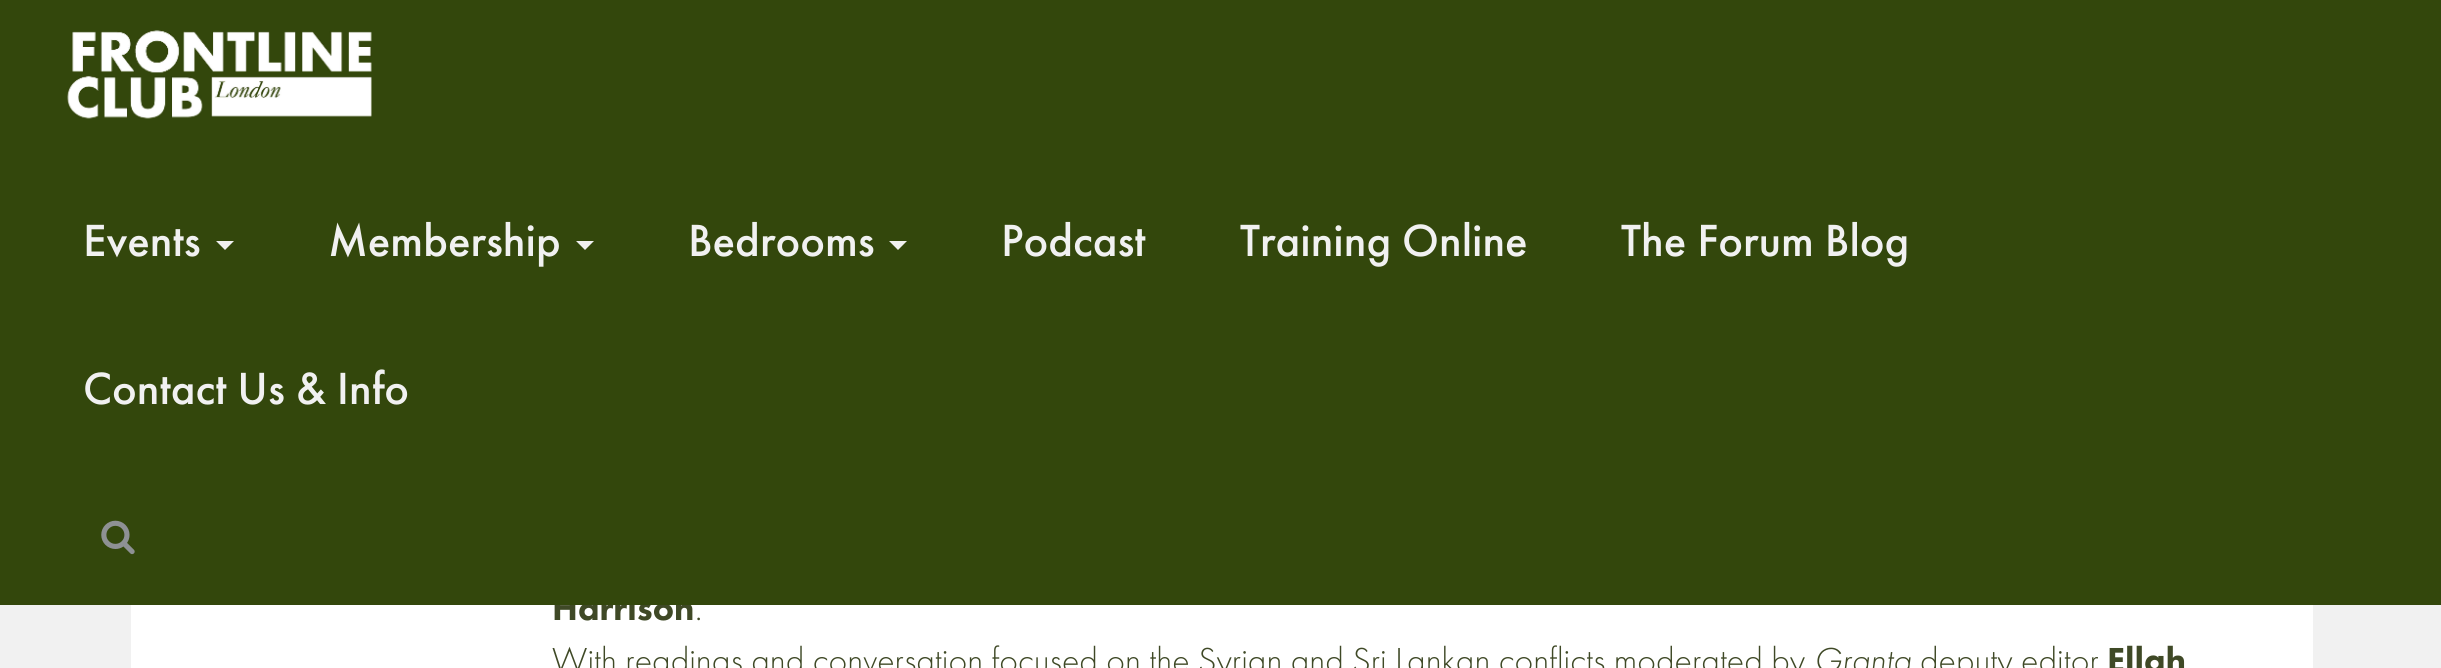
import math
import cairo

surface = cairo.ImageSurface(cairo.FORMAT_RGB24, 2441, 668)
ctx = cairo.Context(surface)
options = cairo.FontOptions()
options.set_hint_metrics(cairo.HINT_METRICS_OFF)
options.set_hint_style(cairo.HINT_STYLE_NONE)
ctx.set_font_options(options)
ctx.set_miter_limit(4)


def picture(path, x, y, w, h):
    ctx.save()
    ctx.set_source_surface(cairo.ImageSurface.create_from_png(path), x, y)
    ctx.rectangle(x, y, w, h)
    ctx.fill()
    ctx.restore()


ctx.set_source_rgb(0.945, 0.945, 0.945)
ctx.paint()
ctx.set_source_rgb(1, 1, 1)
ctx.rectangle(131, 605, 2182, 63)
ctx.fill()
ctx.select_font_face("Futura PT Black")
ctx.set_font_size(36)
ctx.set_source_rgb(0.247, 0.286, 0.149)
ctx.move_to(552, 620)
ctx.show_text("Harrison")
ctx.set_source_rgb(0.2, 0.278, 0.047)
ctx.rectangle(0, 0, 2441, 605)
ctx.fill()
picture("img1.png", 67, 30, 305, 89)
ctx.select_font_face("Futura PT Medium")
ctx.set_font_size(46.75)
ctx.set_source_rgb(0.945, 0.945, 0.945)
ctx.move_to(83, 256)
ctx.show_text("Events")
ctx.new_path()
ctx.move_to(216, 241)
ctx.line_to(234, 241)
ctx.line_to(225, 250)
ctx.close_path()
ctx.fill()
ctx.move_to(328, 256)
ctx.show_text("Membership")
ctx.new_path()
ctx.move_to(576, 241)
ctx.line_to(594, 241)
ctx.line_to(585, 250)
ctx.close_path()
ctx.fill()
ctx.move_to(688, 256)
ctx.show_text("Bedrooms")
ctx.new_path()
ctx.move_to(889, 241)
ctx.line_to(907, 241)
ctx.line_to(898, 250)
ctx.close_path()
ctx.fill()
ctx.move_to(1001, 256)
ctx.show_text("Podcast")
ctx.move_to(1240, 256)
ctx.show_text("Training Online")
ctx.move_to(1621, 256)
ctx.show_text("The Forum Blog")
ctx.move_to(83, 404)
ctx.show_text("Contact Us & Info")
picture("img2.png", 101, 520, 34, 35)
ctx.select_font_face("Futura PT Light")
ctx.set_font_size(36)
ctx.set_source_rgb(0.247, 0.286, 0.149)
ctx.move_to(695, 620)
ctx.show_text(".")
ctx.move_to(552, 672)
ctx.show_text("With readings and conversation focused on the Syrian and Sri Lankan conflicts moderated by")
ctx.select_font_face("Futura PT Light", cairo.FONT_SLANT_ITALIC)
ctx.move_to(1814, 672)
ctx.show_text("Granta")
ctx.select_font_face("Futura PT Light")
ctx.move_to(1920, 672)
ctx.show_text("deputy editor")
ctx.select_font_face("Futura PT Black")
ctx.move_to(2107, 672)
ctx.show_text("Ellah")
surface.write_to_png("page.png")
